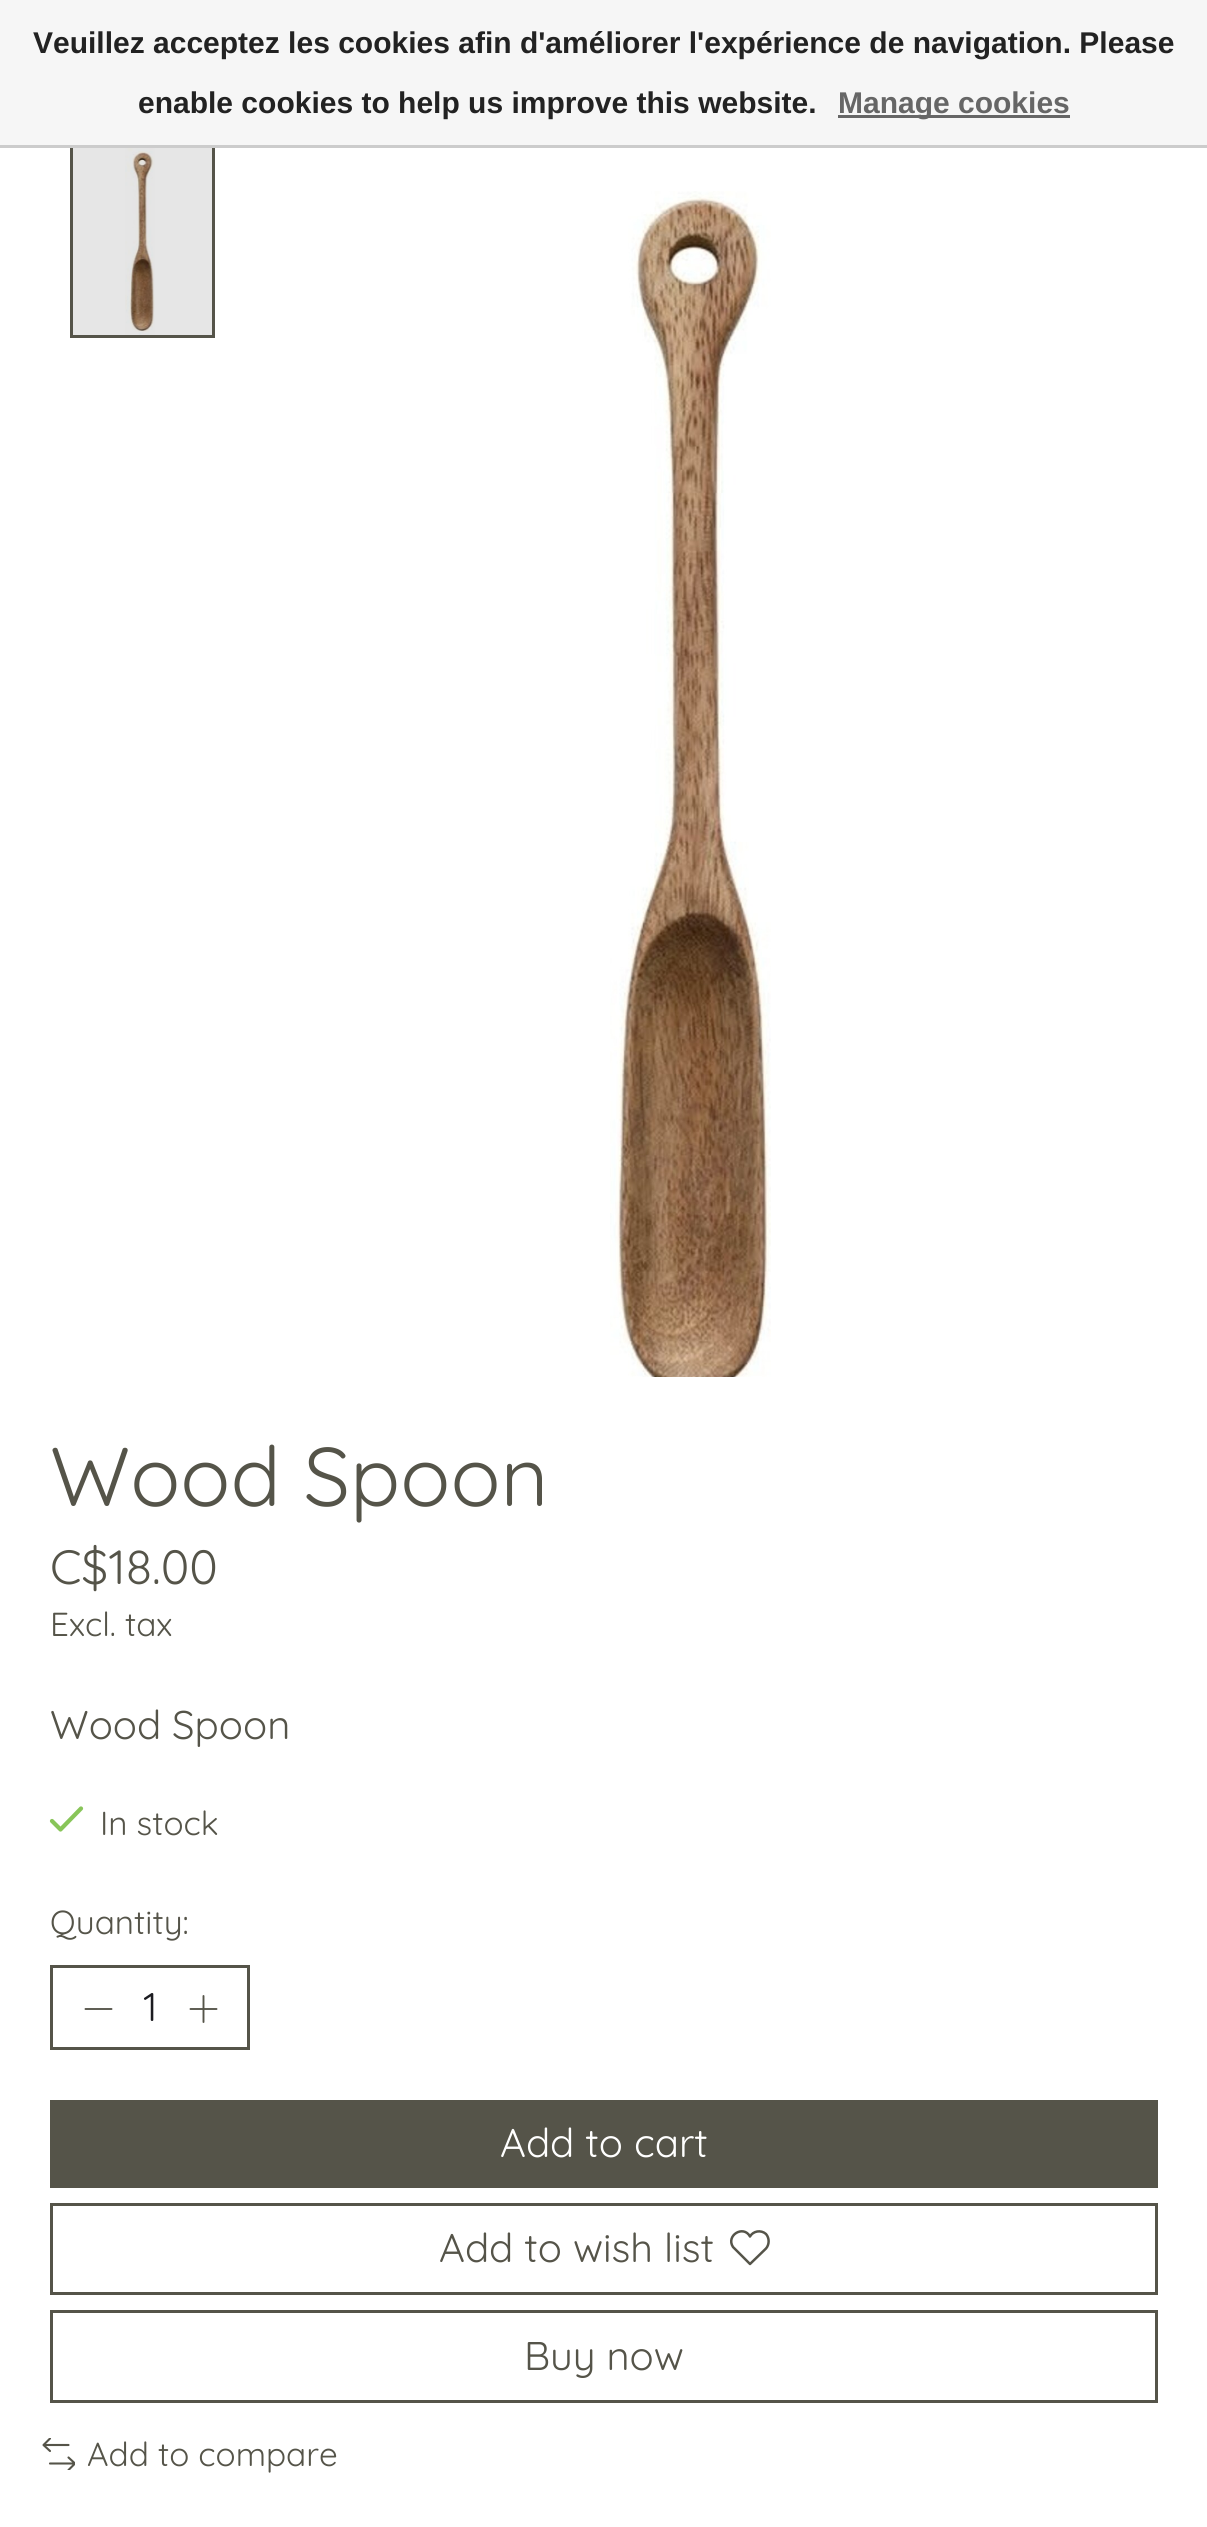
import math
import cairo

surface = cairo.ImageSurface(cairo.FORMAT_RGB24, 1207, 2527)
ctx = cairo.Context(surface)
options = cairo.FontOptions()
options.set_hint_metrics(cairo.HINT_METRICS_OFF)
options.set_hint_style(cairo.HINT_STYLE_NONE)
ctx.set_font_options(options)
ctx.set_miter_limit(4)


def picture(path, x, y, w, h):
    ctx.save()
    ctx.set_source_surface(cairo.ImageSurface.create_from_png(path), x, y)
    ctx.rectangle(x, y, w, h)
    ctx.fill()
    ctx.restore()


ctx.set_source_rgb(1, 1, 1)
ctx.paint()
ctx.set_source_rgb(0.902, 0.902, 0.902)
ctx.rectangle(73, 148, 139, 187)
ctx.fill()
ctx.set_source_rgb(0.961, 0.961, 0.961)
ctx.rectangle(0, 0, 1207, 145)
ctx.fill()
picture("img1.png", 125, 148, 30, 187)
ctx.rectangle(71.5, 146.5, 142, 190)
ctx.set_source_rgb(0.333, 0.329, 0.286)
ctx.set_line_width(3)
ctx.stroke()
ctx.set_source_rgb(0.8, 0.8, 0.8)
ctx.rectangle(0, 145, 1207, 3)
ctx.fill()
ctx.select_font_face("Liberation Sans", cairo.FONT_SLANT_NORMAL, cairo.FONT_WEIGHT_BOLD)
ctx.set_font_size(30)
ctx.set_source_rgb(0.133, 0.133, 0.133)
ctx.move_to(33, 53)
ctx.show_text("Veuillez acceptez les cookies afin d'améliorer l'expérience de navigation. Please")
ctx.move_to(138, 113)
ctx.show_text("enable cookies to help us improve this website.")
ctx.set_source_rgb(0.4, 0.4, 0.4)
ctx.rectangle(838, 115, 232, 3)
ctx.fill()
ctx.move_to(838, 113)
ctx.show_text("Manage cookies")
picture("img2.png", 610, 191, 161, 1186)
ctx.select_font_face("Quicksand")
ctx.set_font_size(83)
ctx.set_source_rgb(0.333, 0.329, 0.286)
ctx.move_to(50, 1506)
ctx.show_text("Wood Spoon")
ctx.set_font_size(48)
ctx.move_to(50, 1584)
ctx.show_text("C$18.00")
ctx.set_font_size(33.25)
ctx.move_to(50, 1636)
ctx.show_text("Excl. tax")
ctx.set_font_size(40)
ctx.move_to(50, 1739)
ctx.show_text("Wood Spoon")
ctx.new_path()
ctx.move_to(52, 1821)
ctx.line_to(60.5, 1829.5)
ctx.line_to(81, 1808.5)
ctx.set_source_rgb(0.533, 0.773, 0.349)
ctx.set_line_width(4.2)
ctx.set_line_cap(cairo.LINE_CAP_ROUND)
ctx.set_line_join(cairo.LINE_JOIN_ROUND)
ctx.stroke()
ctx.set_font_size(33.25)
ctx.set_source_rgb(0.333, 0.329, 0.286)
ctx.move_to(100, 1835)
ctx.show_text("In stock")
ctx.move_to(50, 1934)
ctx.show_text("Quantity:")
ctx.rectangle(51.5, 1966.5, 197, 82)
ctx.set_line_width(3)
ctx.set_line_cap(cairo.LINE_CAP_BUTT)
ctx.set_line_join(cairo.LINE_JOIN_MITER)
ctx.stroke()
ctx.new_path()
ctx.move_to(85.5, 2009)
ctx.line_to(111.5, 2009)
ctx.set_line_width(1.9)
ctx.set_line_cap(cairo.LINE_CAP_ROUND)
ctx.set_line_join(cairo.LINE_JOIN_ROUND)
ctx.stroke()
ctx.set_font_size(40)
ctx.set_source_rgb(0.11, 0.11, 0.129)
ctx.move_to(143, 2021)
ctx.show_text("1")
ctx.new_path()
ctx.move_to(203.5, 1996)
ctx.line_to(203.5, 2022)
ctx.move_to(190.5, 2009)
ctx.line_to(216.5, 2009)
ctx.set_source_rgb(0.333, 0.329, 0.286)
ctx.stroke()
ctx.rectangle(50, 2100, 1108, 88)
ctx.fill()
ctx.set_source_rgb(1, 1, 1)
ctx.move_to(500, 2157)
ctx.show_text("Add to cart")
ctx.rectangle(51.5, 2204.5, 1105, 89)
ctx.set_source_rgb(0.333, 0.329, 0.286)
ctx.set_line_width(3)
ctx.set_line_cap(cairo.LINE_CAP_BUTT)
ctx.set_line_join(cairo.LINE_JOIN_MITER)
ctx.stroke()
ctx.move_to(439, 2262)
ctx.show_text("Add to wish list")
ctx.new_path()
ctx.move_to(766, 2234)
ctx.curve_to(761, 2229.5, 753, 2231, 750, 2236.5)
ctx.curve_to(743.5, 2224.5, 725.5, 2235.5, 733, 2247)
ctx.line_to(750, 2264)
ctx.line_to(766, 2248.5)
ctx.curve_to(769.5, 2244.5, 769.5, 2238, 766, 2234)
ctx.close_path()
ctx.set_line_width(2.5)
ctx.set_line_cap(cairo.LINE_CAP_ROUND)
ctx.set_line_join(cairo.LINE_JOIN_ROUND)
ctx.stroke()
ctx.rectangle(51.5, 2311.5, 1105, 90)
ctx.set_line_width(3)
ctx.set_line_cap(cairo.LINE_CAP_BUTT)
ctx.set_line_join(cairo.LINE_JOIN_MITER)
ctx.stroke()
ctx.move_to(524, 2370)
ctx.show_text("Buy now")
ctx.save()
ctx.rectangle(43, 2438, 32, 32)
ctx.clip()
ctx.new_path()
ctx.move_to(50, 2438.5)
ctx.line_to(43.5, 2445)
ctx.line_to(50, 2451)
ctx.set_line_width(2.1)
ctx.set_line_cap(cairo.LINE_CAP_ROUND)
ctx.set_line_join(cairo.LINE_JOIN_ROUND)
ctx.stroke()
ctx.restore()
ctx.new_path()
ctx.move_to(68.5, 2445)
ctx.line_to(43.5, 2445)
ctx.set_line_width(2.1)
ctx.set_line_cap(cairo.LINE_CAP_ROUND)
ctx.set_line_join(cairo.LINE_JOIN_ROUND)
ctx.stroke()
ctx.save()
ctx.rectangle(43, 2438, 32, 32)
ctx.clip()
ctx.new_path()
ctx.move_to(68.5, 2457.5)
ctx.line_to(75, 2463.5)
ctx.line_to(68.5, 2470)
ctx.move_to(50, 2463.5)
ctx.line_to(75, 2463.5)
ctx.stroke()
ctx.restore()
ctx.set_font_size(33.25)
ctx.move_to(87, 2466)
ctx.show_text("Add to compare")
surface.write_to_png("page.png")
